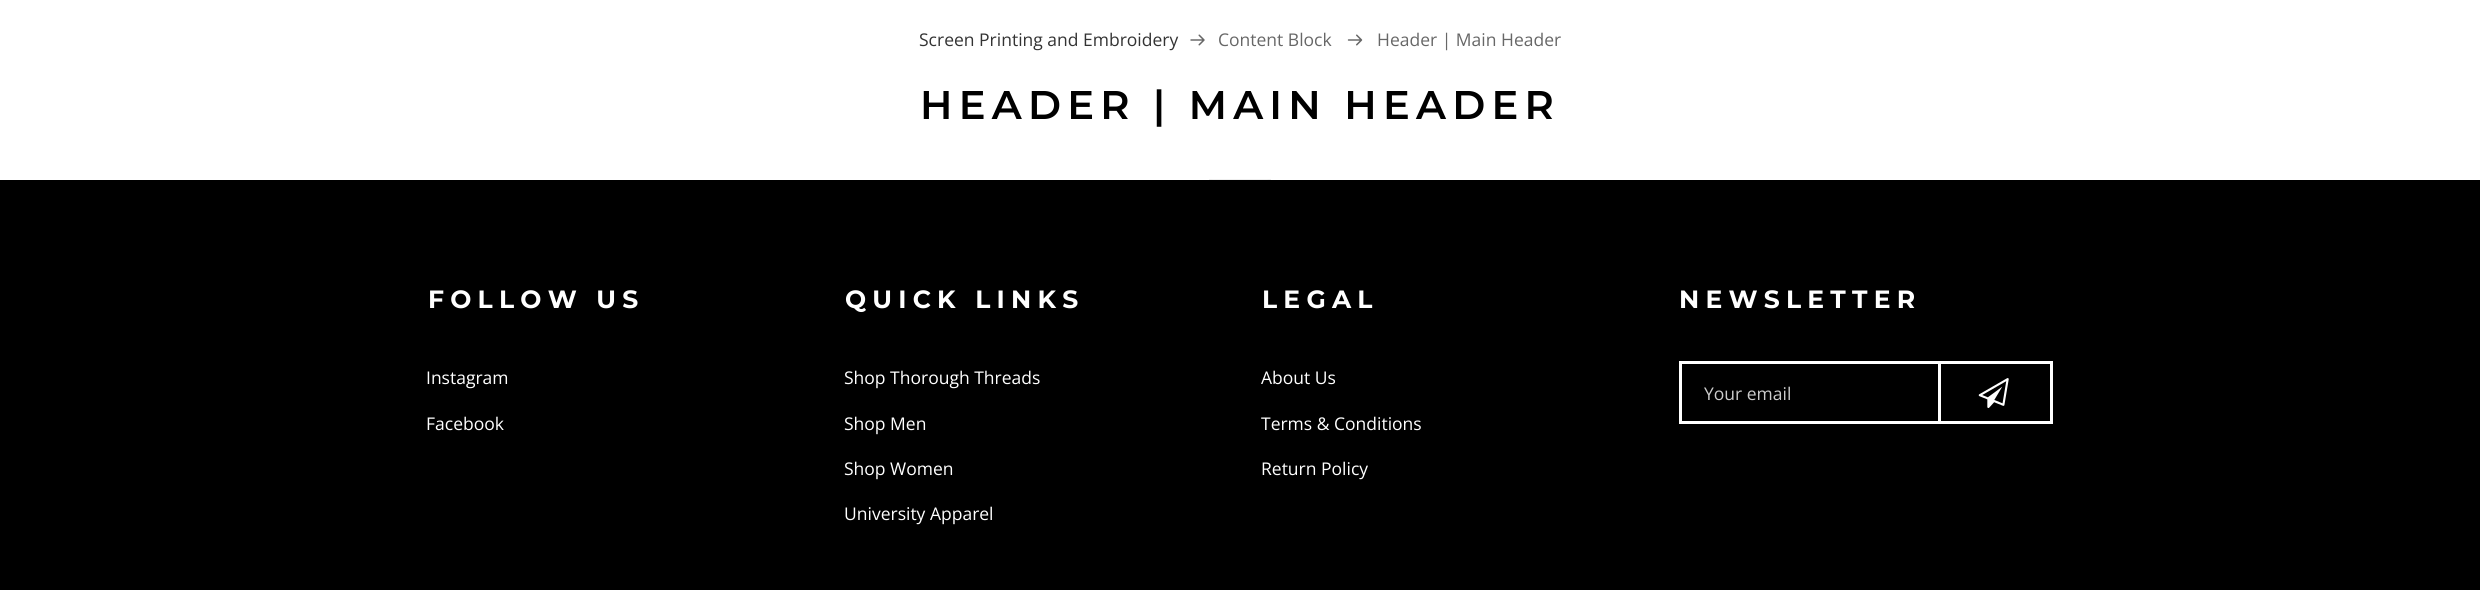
import math
import cairo

surface = cairo.ImageSurface(cairo.FORMAT_RGB24, 2480, 590)
ctx = cairo.Context(surface)
options = cairo.FontOptions()
options.set_hint_metrics(cairo.HINT_METRICS_OFF)
options.set_hint_style(cairo.HINT_STYLE_NONE)
ctx.set_font_options(options)
ctx.set_miter_limit(4)


def spaced_text(x, y, s, letter, word):
    ctx.move_to(x, y)
    for ch in s:
        ctx.show_text(ch)
        ctx.rel_move_to(letter + word * (ch == ' '), 0)


def picture(path, x, y, w, h):
    ctx.save()
    ctx.set_source_surface(cairo.ImageSurface.create_from_png(path), x, y)
    ctx.rectangle(x, y, w, h)
    ctx.fill()
    ctx.restore()


ctx.set_source_rgb(1, 1, 1)
ctx.paint()
ctx.select_font_face("Open Sans")
ctx.set_font_size(17.5)
ctx.set_source_rgb(0.2, 0.2, 0.2)
ctx.move_to(919, 46)
ctx.show_text("Screen Printing and Embroidery")
picture("img1.png", 1190, 34, 15, 12)
ctx.set_source_rgb(0.404, 0.404, 0.404)
ctx.move_to(1218, 46)
ctx.show_text("Content Block")
picture("img2.png", 1347, 34, 16, 12)
ctx.move_to(1377, 46)
ctx.show_text("Header | Main Header")
ctx.select_font_face("Montserrat SemiBold")
ctx.set_font_size(40)
ctx.set_source_rgb(0, 0, 0)
spaced_text(920, 119, "HEADER | MAIN HEADER", 6.25, 0)
ctx.set_source_rgb(0.929, 0.929, 0.929)
ctx.new_path()
ctx.move_to(1271, 179)
ctx.line_to(1271, 180)
ctx.line_to(1267.5, 179)
ctx.close_path()
ctx.fill()
ctx.set_source_rgba(0, 0, 0, 0.07)
ctx.new_path()
ctx.move_to(1271, 180)
ctx.line_to(1209, 180)
ctx.line_to(1212, 179)
ctx.line_to(1268, 179)
ctx.close_path()
ctx.fill()
ctx.new_path()
ctx.move_to(1209, 180)
ctx.line_to(1209, 179)
ctx.line_to(1212.5, 179)
ctx.close_path()
ctx.fill()
ctx.set_source_rgb(0, 0, 0)
ctx.rectangle(0, 180, 2480, 410)
ctx.fill()
ctx.select_font_face("Montserrat", cairo.FONT_SLANT_NORMAL, cairo.FONT_WEIGHT_BOLD)
ctx.set_font_size(25)
ctx.set_source_rgb(1, 1, 1)
spaced_text(428, 308, "FOLLOW US", 6.25, 0)
ctx.select_font_face("Open Sans")
ctx.set_font_size(17.5)
ctx.move_to(426, 384)
ctx.show_text("Instagram")
ctx.move_to(426, 430)
ctx.show_text("Facebook")
ctx.select_font_face("Montserrat", cairo.FONT_SLANT_NORMAL, cairo.FONT_WEIGHT_BOLD)
ctx.set_font_size(25)
spaced_text(845, 308, "QUICK LINKS", 6.25, 0)
ctx.select_font_face("Open Sans")
ctx.set_font_size(17.5)
ctx.move_to(844, 384)
ctx.show_text("Shop Thorough Threads")
ctx.move_to(844, 430)
ctx.show_text("Shop Men")
ctx.move_to(844, 475)
ctx.show_text("Shop Women")
ctx.move_to(844, 520)
ctx.show_text("University Apparel")
ctx.select_font_face("Montserrat", cairo.FONT_SLANT_NORMAL, cairo.FONT_WEIGHT_BOLD)
ctx.set_font_size(25)
spaced_text(1262, 308, "LEGAL", 6.25, 0)
ctx.select_font_face("Open Sans")
ctx.set_font_size(17.5)
ctx.move_to(1261, 384)
ctx.show_text("About Us")
ctx.move_to(1261, 430)
ctx.show_text("Terms & Conditions")
ctx.move_to(1261, 475)
ctx.show_text("Return Policy")
ctx.select_font_face("Montserrat", cairo.FONT_SLANT_NORMAL, cairo.FONT_WEIGHT_BOLD)
ctx.set_font_size(25)
spaced_text(1679, 308, "NEWSLETTER", 6.25, 0)
ctx.rectangle(1679, 361, 259, 3)
ctx.fill()
ctx.rectangle(1679, 421, 259, 3)
ctx.fill()
ctx.rectangle(1679, 361, 3, 63)
ctx.fill()
ctx.select_font_face("Open Sans")
ctx.set_font_size(17.5)
ctx.set_source_rgb(0.8, 0.8, 0.8)
ctx.move_to(1704, 400)
ctx.show_text("Your email")
ctx.rectangle(1939.5, 362.5, 112, 60)
ctx.set_source_rgb(1, 1, 1)
ctx.set_line_width(3)
ctx.stroke()
picture("img3.png", 1978, 378, 31, 30)
surface.write_to_png("page.png")
